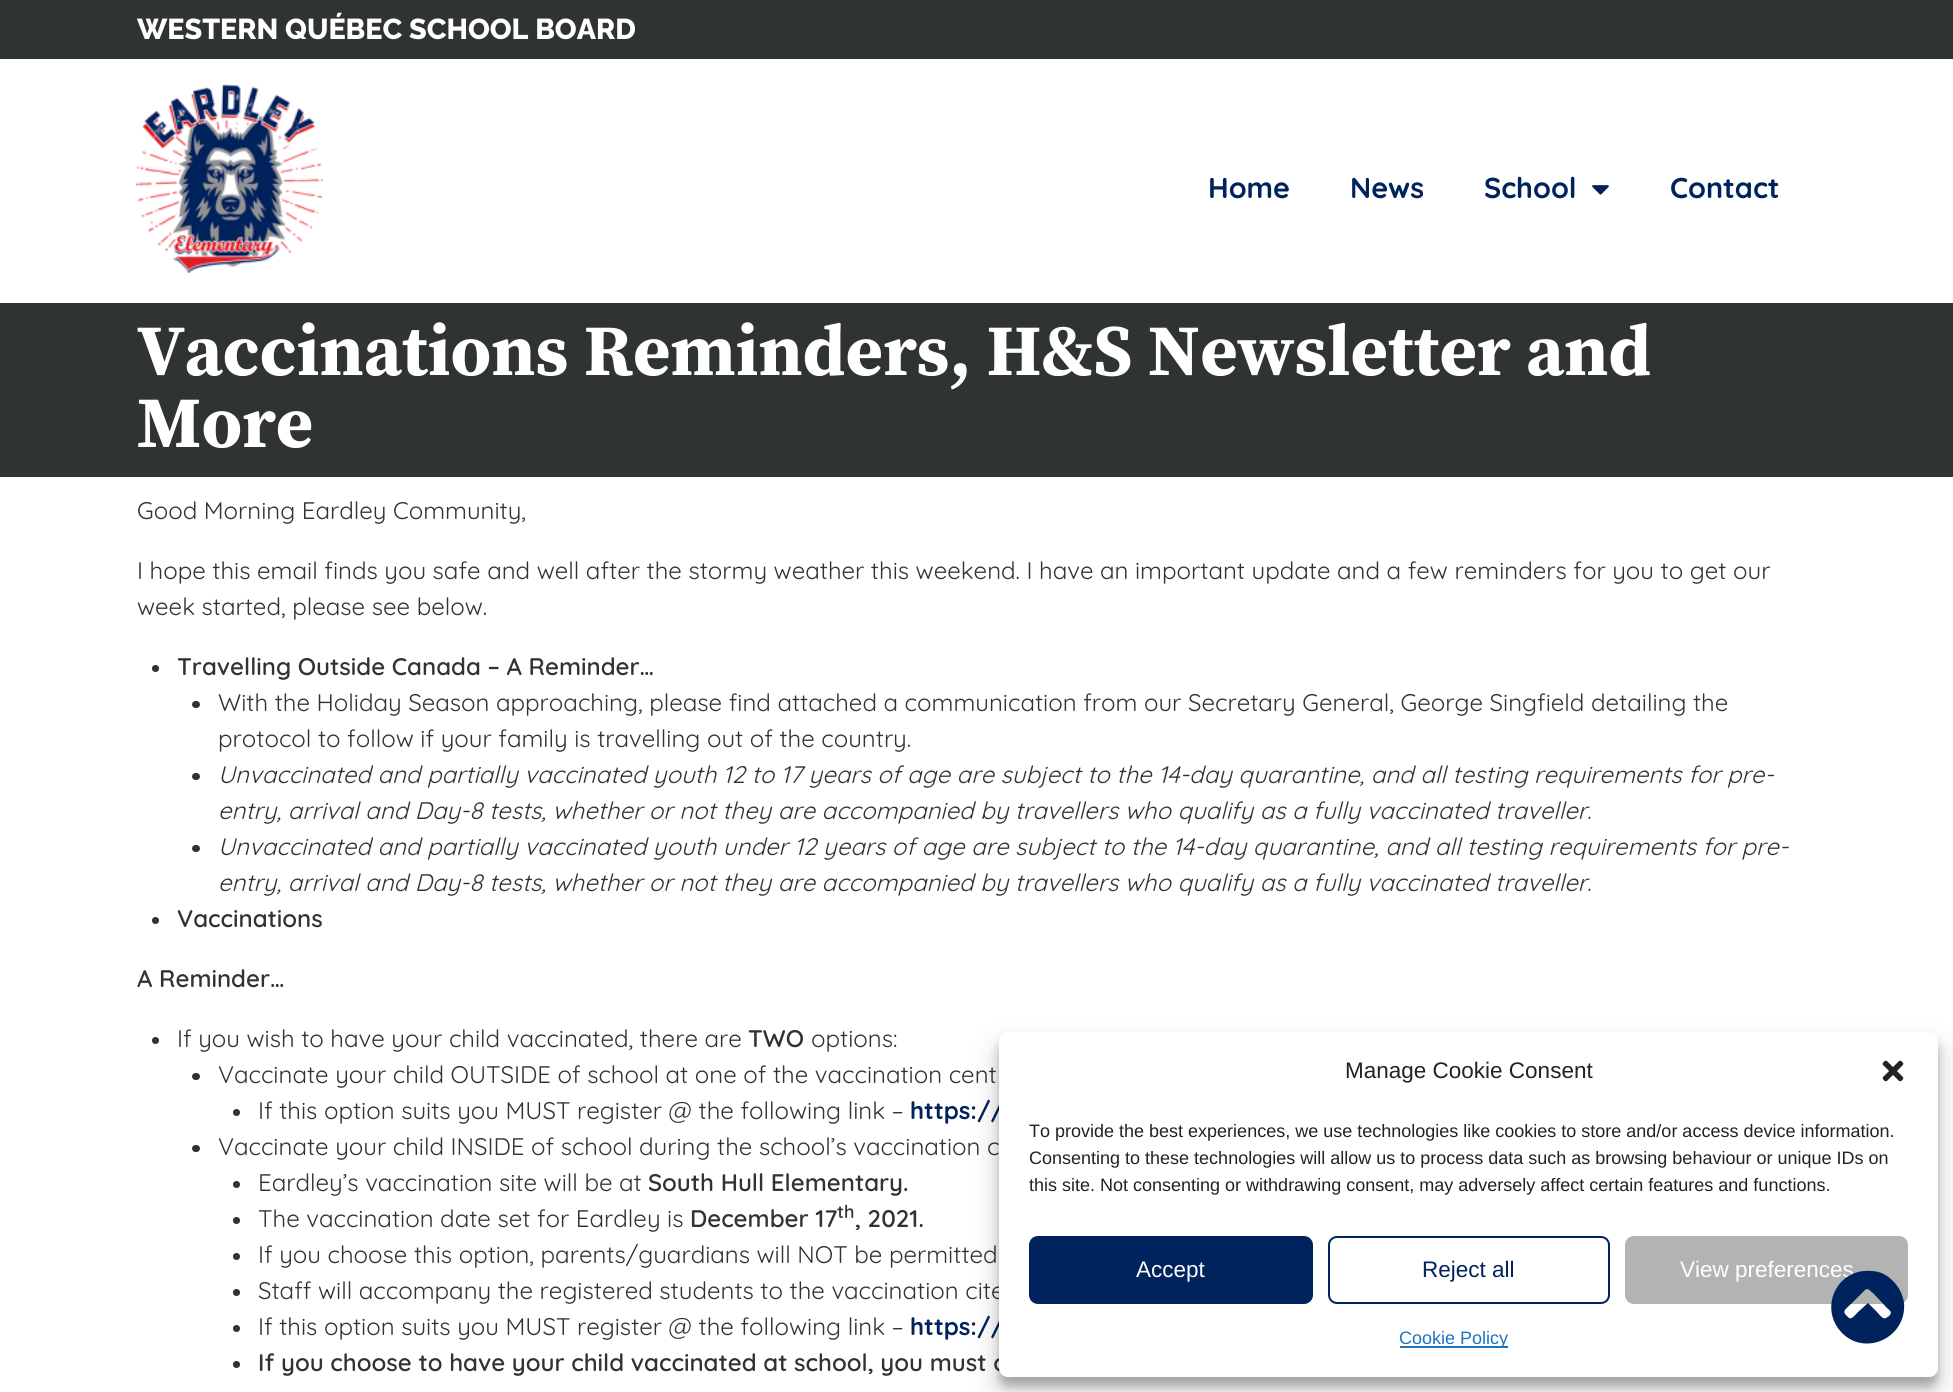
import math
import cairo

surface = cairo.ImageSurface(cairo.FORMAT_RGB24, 1953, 1392)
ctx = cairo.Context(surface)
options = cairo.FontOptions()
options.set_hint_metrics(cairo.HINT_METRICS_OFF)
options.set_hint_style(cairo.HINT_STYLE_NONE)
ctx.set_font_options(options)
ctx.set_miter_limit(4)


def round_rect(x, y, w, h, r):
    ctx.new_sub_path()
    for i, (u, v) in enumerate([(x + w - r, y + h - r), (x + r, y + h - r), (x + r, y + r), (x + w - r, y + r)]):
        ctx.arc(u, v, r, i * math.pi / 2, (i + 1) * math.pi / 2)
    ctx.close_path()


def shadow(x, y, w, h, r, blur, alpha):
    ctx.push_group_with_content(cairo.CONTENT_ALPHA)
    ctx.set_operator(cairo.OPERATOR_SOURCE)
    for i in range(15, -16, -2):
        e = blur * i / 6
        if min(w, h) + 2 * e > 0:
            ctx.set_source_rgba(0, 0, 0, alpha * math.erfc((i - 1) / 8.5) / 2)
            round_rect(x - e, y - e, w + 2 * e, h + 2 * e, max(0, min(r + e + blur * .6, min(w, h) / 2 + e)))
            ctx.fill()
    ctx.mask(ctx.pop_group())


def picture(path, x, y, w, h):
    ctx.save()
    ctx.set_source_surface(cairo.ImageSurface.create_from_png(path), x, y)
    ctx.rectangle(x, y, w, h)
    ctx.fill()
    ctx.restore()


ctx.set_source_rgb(1, 1, 1)
ctx.paint()
ctx.set_source_rgb(0.188, 0.2, 0.2)
ctx.rectangle(0, 0, 1953, 59)
ctx.fill()
ctx.select_font_face("Raleway ExtraBold")
ctx.set_font_size(28.75)
ctx.set_source_rgb(1, 1, 1)
ctx.move_to(137, 39)
ctx.show_text("WESTERN QUÉBEC SCHOOL BOARD")
picture("img1.png", 136, 84, 187, 189)
ctx.select_font_face("Quicksand", cairo.FONT_SLANT_NORMAL, cairo.FONT_WEIGHT_BOLD)
ctx.set_source_rgb(0, 0.137, 0.365)
ctx.move_to(1208, 198)
ctx.show_text("Home")
ctx.move_to(1350, 198)
ctx.show_text("News")
ctx.move_to(1484, 198)
ctx.show_text("School")
picture("img2.png", 1592, 185, 17, 10)
ctx.move_to(1670, 198)
ctx.show_text("Contact")
ctx.set_source_rgb(0.188, 0.2, 0.2)
ctx.rectangle(0, 303, 1953, 174)
ctx.fill()
ctx.select_font_face("Source Serif Pro", cairo.FONT_SLANT_NORMAL, cairo.FONT_WEIGHT_BOLD)
ctx.set_font_size(72)
ctx.set_source_rgb(1, 1, 1)
ctx.move_to(137, 375)
ctx.show_text("Vaccinations Reminders, H&S Newsletter and")
ctx.move_to(137, 447)
ctx.show_text("More")
ctx.select_font_face("Quicksand")
ctx.set_font_size(24)
ctx.set_source_rgb(0.188, 0.2, 0.2)
ctx.move_to(137, 519)
ctx.show_text("Good Morning Eardley Community,")
ctx.move_to(137, 579)
ctx.show_text("I hope this email finds you safe and well after the stormy weather this weekend. I have an important update and a few reminders for you to get our")
ctx.move_to(137, 615)
ctx.show_text("week started, please see below.")
ctx.new_path()
ctx.arc(155.5, 668.5, 3.5, 0, 2 * math.pi)
ctx.fill()
ctx.select_font_face("Quicksand SemiBold")
ctx.move_to(177, 675)
ctx.show_text("Travelling Outside Canada – A Reminder…")
round_rect(192, 701, 8, 7, 3.5)
ctx.fill()
ctx.select_font_face("Quicksand")
ctx.move_to(218, 711)
ctx.show_text("With the Holiday Season approaching, please find attached a communication from our Secretary General, George Singfield detailing the")
ctx.move_to(218, 747)
ctx.show_text("protocol to follow if your family is travelling out of the country.")
round_rect(192, 773, 8, 7, 3.5)
ctx.fill()
ctx.select_font_face("Quicksand", cairo.FONT_SLANT_ITALIC)
ctx.move_to(218, 783)
ctx.show_text("Unvaccinated and partially vaccinated youth 12 to 17 years of age are subject to the 14-day quarantine, and all testing requirements for pre-")
ctx.move_to(218, 819)
ctx.show_text("entry, arrival and Day-8 tests, whether or not they are accompanied by travellers who qualify as a fully vaccinated traveller.")
round_rect(192, 845, 8, 7, 3.5)
ctx.fill()
ctx.move_to(218, 855)
ctx.show_text("Unvaccinated and partially vaccinated youth under 12 years of age are subject to the 14-day quarantine, and all testing requirements for pre-")
ctx.move_to(218, 891)
ctx.show_text("entry, arrival and Day-8 tests, whether or not they are accompanied by travellers who qualify as a fully vaccinated traveller.")
ctx.new_path()
ctx.arc(155.5, 920.5, 3.5, 0, 2 * math.pi)
ctx.fill()
ctx.select_font_face("Quicksand SemiBold")
ctx.move_to(177, 927)
ctx.show_text("Vaccinations")
ctx.move_to(137, 987)
ctx.show_text("A Reminder…")
ctx.new_path()
ctx.arc(155.5, 1040.5, 3.5, 0, 2 * math.pi)
ctx.fill()
ctx.select_font_face("Quicksand")
ctx.move_to(177, 1047)
ctx.show_text("If you wish to have your child vaccinated, there are")
ctx.select_font_face("Quicksand SemiBold")
ctx.move_to(748, 1047)
ctx.show_text("TWO")
ctx.select_font_face("Quicksand")
ctx.move_to(811, 1047)
ctx.show_text("options:")
round_rect(192, 1073, 8, 7, 3.5)
ctx.fill()
ctx.move_to(218, 1083)
ctx.show_text("Vaccinate your child OUTSIDE of school at one of the vaccination cent")
ctx.new_path()
ctx.arc(236.5, 1112.5, 3.5, 0, 2 * math.pi)
ctx.fill()
ctx.move_to(258, 1119)
ctx.show_text("If this option suits you MUST register @ the following link –")
ctx.select_font_face("Quicksand", cairo.FONT_SLANT_NORMAL, cairo.FONT_WEIGHT_BOLD)
ctx.set_source_rgb(0, 0.137, 0.365)
ctx.move_to(910, 1119)
ctx.show_text("https://")
ctx.set_source_rgb(0.188, 0.2, 0.2)
round_rect(192, 1145, 8, 7, 3.5)
ctx.fill()
ctx.select_font_face("Quicksand")
ctx.move_to(218, 1155)
ctx.show_text("Vaccinate your child INSIDE of school during the school’s vaccination c")
ctx.new_path()
ctx.arc(236.5, 1184.5, 3.5, 0, 2 * math.pi)
ctx.fill()
ctx.move_to(258, 1191)
ctx.show_text("Eardley’s vaccination site will be at")
ctx.select_font_face("Quicksand SemiBold")
ctx.move_to(648, 1191)
ctx.show_text("South Hull Elementary.")
ctx.new_path()
ctx.arc(236.5, 1220.5, 3.5, 0, 2 * math.pi)
ctx.fill()
ctx.select_font_face("Quicksand")
ctx.move_to(258, 1227)
ctx.show_text("The vaccination date set for Eardley is")
ctx.select_font_face("Quicksand SemiBold")
ctx.move_to(690, 1227)
ctx.show_text("December 17")
ctx.set_font_size(18)
ctx.move_to(837, 1218)
ctx.show_text("th")
ctx.set_font_size(24)
ctx.move_to(855, 1227)
ctx.show_text(", 2021.")
ctx.new_path()
ctx.arc(236.5, 1256.5, 3.5, 0, 2 * math.pi)
ctx.fill()
ctx.select_font_face("Quicksand")
ctx.move_to(258, 1263)
ctx.show_text("If you choose this option, parents/guardians will NOT be permitted")
ctx.new_path()
ctx.arc(236.5, 1292.5, 3.5, 0, 2 * math.pi)
ctx.fill()
ctx.move_to(258, 1299)
ctx.show_text("Staff will accompany the registered students to the vaccination cite")
ctx.new_path()
ctx.arc(236.5, 1328.5, 3.5, 0, 2 * math.pi)
ctx.fill()
ctx.move_to(258, 1335)
ctx.show_text("If this option suits you MUST register @ the following link –")
ctx.select_font_face("Quicksand", cairo.FONT_SLANT_NORMAL, cairo.FONT_WEIGHT_BOLD)
ctx.set_source_rgb(0, 0.137, 0.365)
ctx.move_to(910, 1335)
ctx.show_text("https://")
ctx.set_source_rgb(0.188, 0.2, 0.2)
ctx.new_path()
ctx.arc(236.5, 1364.5, 3.5, 0, 2 * math.pi)
ctx.fill()
ctx.select_font_face("Quicksand SemiBold")
ctx.move_to(258, 1371)
ctx.show_text("If you choose to have your child vaccinated at school, you must c")
ctx.set_source_rgb(0, 0, 0)
shadow(999, 1041, 939, 345, 9, 4.5, 0.23)
shadow(999, 1047, 939, 345, 9, 15, 0.19)
ctx.set_source_rgb(1, 1, 1)
round_rect(999, 1032, 939, 345, 9)
ctx.fill()
ctx.select_font_face("Liberation Sans")
ctx.set_font_size(22.5)
ctx.set_source_rgb(0.133, 0.133, 0.133)
ctx.move_to(1345, 1078)
ctx.show_text("Manage Cookie Consent")
picture("img3.png", 1882, 1060, 22, 22)
ctx.set_font_size(18)
ctx.move_to(1029, 1137)
ctx.show_text("To provide the best experiences, we use technologies like cookies to store and/or access device information.")
ctx.move_to(1029, 1164)
ctx.show_text("Consenting to these technologies will allow us to process data such as browsing behaviour or unique IDs on")
ctx.move_to(1029, 1191)
ctx.show_text("this site. Not consenting or withdrawing consent, may adversely affect certain features and functions.")
ctx.set_source_rgb(0, 0.137, 0.365)
round_rect(1030, 1237, 282, 66, 8)
ctx.fill_preserve()
ctx.stroke()
ctx.set_font_size(22.5)
ctx.set_source_rgb(1, 1, 1)
ctx.move_to(1136, 1277)
ctx.show_text("Accept")
round_rect(1329, 1237, 280, 66, 8)
ctx.set_source_rgb(0, 0.137, 0.365)
ctx.stroke()
ctx.move_to(1422, 1277)
ctx.show_text("Reject all")
ctx.set_source_rgb(0.702, 0.702, 0.702)
round_rect(1626, 1237, 281, 66, 8)
ctx.fill_preserve()
ctx.stroke()
ctx.set_source_rgb(1, 1, 1)
ctx.move_to(1680, 1277)
ctx.show_text("View preferences")
ctx.set_source_rgb(0.118, 0.451, 0.745)
ctx.rectangle(1400, 1346, 108, 2)
ctx.fill()
ctx.set_font_size(18)
ctx.move_to(1399, 1344)
ctx.show_text("Cookie Policy")
ctx.set_source_rgb(0, 0.137, 0.365)
ctx.new_path()
ctx.move_to(1842, 1333)
ctx.curve_to(1818, 1308, 1837, 1268, 1871, 1271)
ctx.curve_to(1880, 1271, 1887, 1275, 1893, 1281)
ctx.curve_to(1899, 1287, 1903, 1295, 1904, 1303)
ctx.curve_to(1907, 1337, 1866, 1357, 1842, 1333)
ctx.close_path()
ctx.move_to(1865, 1290)
ctx.line_to(1852, 1303)
ctx.curve_to(1845, 1310, 1841, 1311, 1848, 1317)
ctx.curve_to(1851, 1321, 1855, 1315, 1858, 1312)
ctx.line_to(1868, 1303)
ctx.line_to(1877, 1312)
ctx.curve_to(1879, 1314, 1883, 1320, 1886, 1318)
ctx.line_to(1889, 1316)
ctx.curve_to(1893, 1312, 1890, 1311, 1886, 1307)
ctx.line_to(1873, 1293)
ctx.curve_to(1871, 1292, 1868, 1287, 1865, 1290)
ctx.close_path()
ctx.fill()
surface.write_to_png("page.png")
